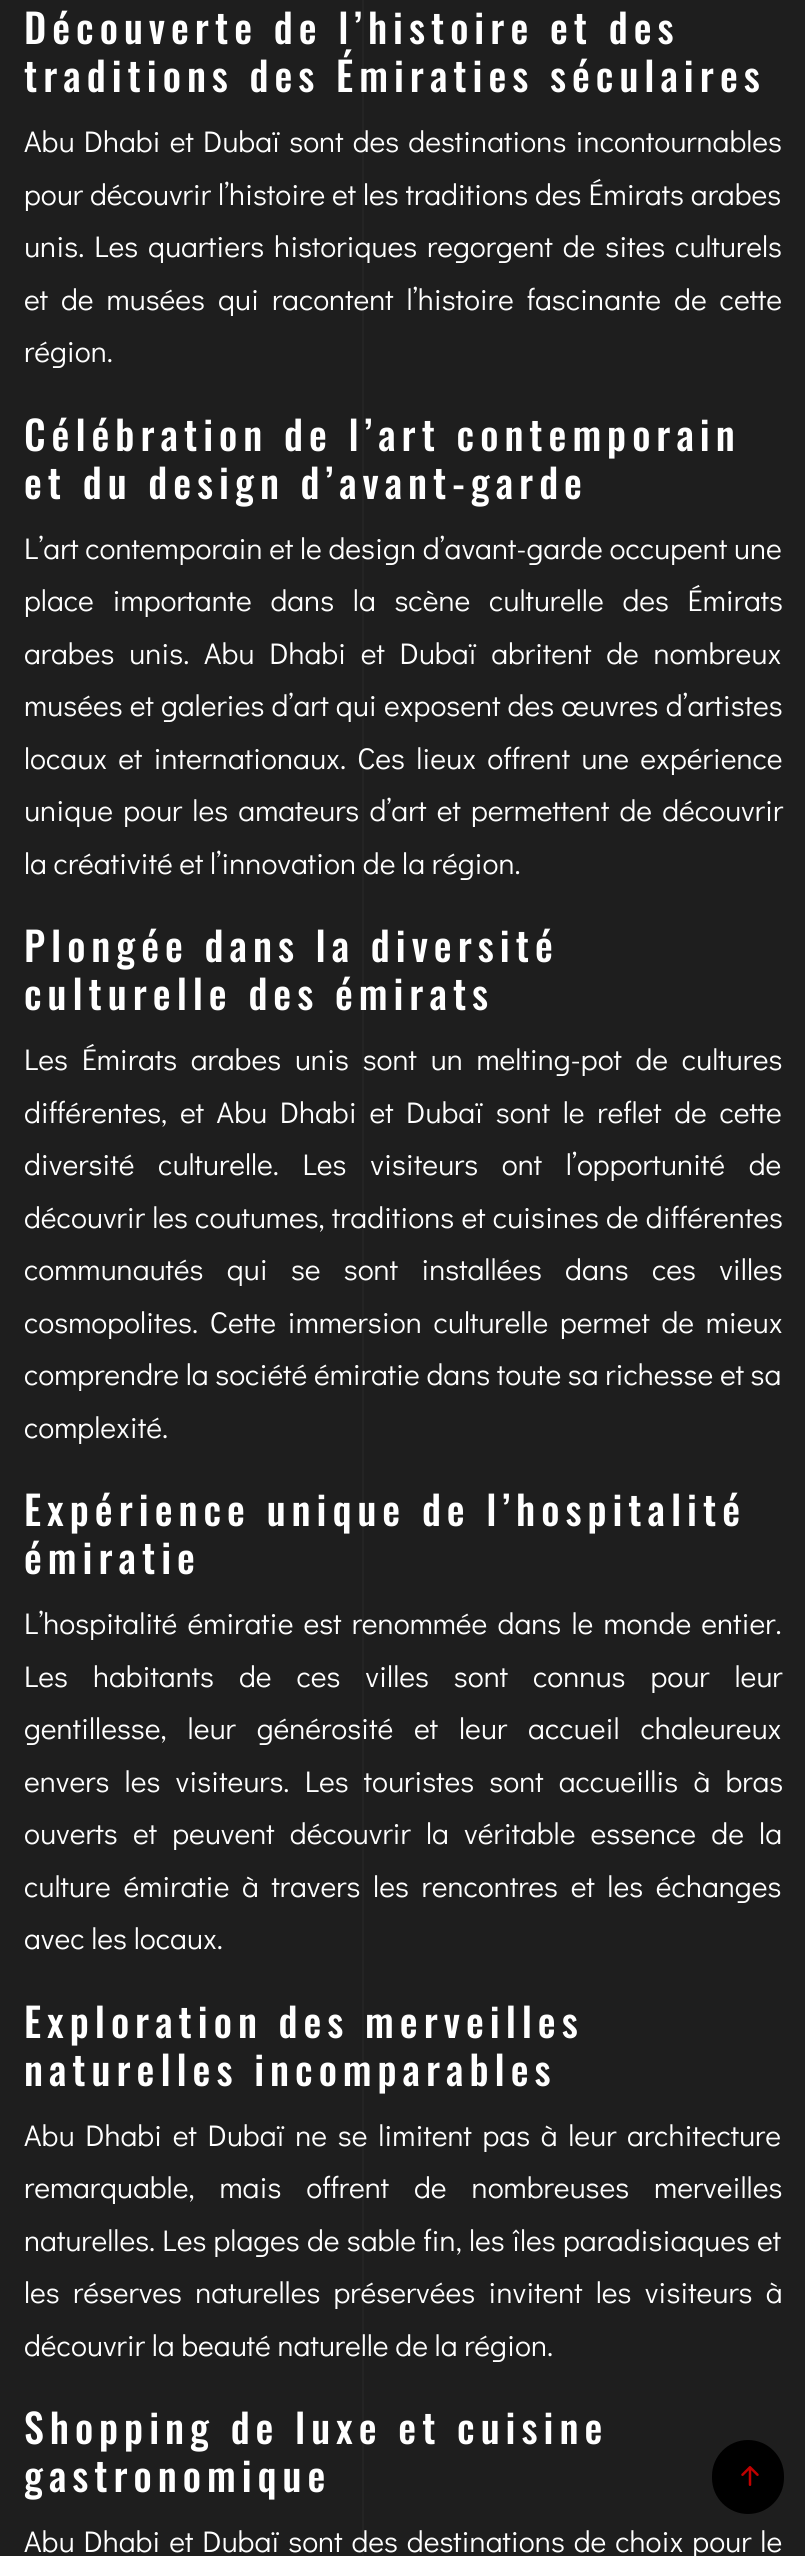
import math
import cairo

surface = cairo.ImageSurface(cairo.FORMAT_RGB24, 805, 2556)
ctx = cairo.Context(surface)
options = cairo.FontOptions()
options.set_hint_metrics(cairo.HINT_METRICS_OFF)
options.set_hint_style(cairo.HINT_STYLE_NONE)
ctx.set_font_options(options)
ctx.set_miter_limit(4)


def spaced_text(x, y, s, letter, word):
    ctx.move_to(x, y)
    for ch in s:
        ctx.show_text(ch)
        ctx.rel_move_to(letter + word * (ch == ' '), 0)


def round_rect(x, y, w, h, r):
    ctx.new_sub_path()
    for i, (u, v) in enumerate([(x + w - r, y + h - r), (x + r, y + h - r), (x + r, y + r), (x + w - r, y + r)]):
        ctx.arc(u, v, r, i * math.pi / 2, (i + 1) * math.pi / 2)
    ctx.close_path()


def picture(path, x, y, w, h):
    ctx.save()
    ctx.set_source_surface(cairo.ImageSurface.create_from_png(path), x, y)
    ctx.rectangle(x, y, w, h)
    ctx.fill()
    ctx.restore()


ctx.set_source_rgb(0.118, 0.118, 0.118)
ctx.paint()
ctx.set_source_rgb(0.141, 0.141, 0.141)
ctx.rectangle(362, 0, 2, 2556)
ctx.fill()
ctx.select_font_face("Oswald Medium")
ctx.set_font_size(40)
ctx.set_source_rgb(1, 1, 1)
spaced_text(24, 44, "Découverte de l’histoire et des", 6, 0)
spaced_text(24, 92, "traditions des Émiraties séculaires", 6, 0)
ctx.select_font_face("Didact Gothic")
ctx.set_font_size(30)
spaced_text(24, 152, "Abu Dhabi et Dubaï sont des destinations incontournables", 0, 2.5)
spaced_text(24, 205, "pour découvrir l’histoire et les traditions des Émirats arabes", 0, 0.25)
spaced_text(24, 257, "unis. Les quartiers historiques regorgent de sites culturels", 0, 3.25)
spaced_text(24, 310, "et de musées qui racontent l’histoire fascinante de cette", 0, 6.25)
ctx.move_to(24, 362)
ctx.show_text("région.")
ctx.select_font_face("Oswald Medium")
ctx.set_font_size(40)
spaced_text(24, 451, "Célébration de l’art contemporain", 6, 0)
spaced_text(24, 499, "et du design d’avant-garde", 6, 0)
ctx.select_font_face("Didact Gothic")
ctx.set_font_size(30)
ctx.move_to(24, 559)
ctx.show_text("L’art contemporain et le design d’avant-garde occupent une")
spaced_text(24, 611, "place importante dans la scène culturelle des Émirats", 0, 12)
spaced_text(24, 664, "arabes unis. Abu Dhabi et Dubaï abritent de nombreux", 0, 8)
spaced_text(24, 716, "musées et galeries d’art qui exposent des œuvres d’artistes", 0, 0.5)
spaced_text(24, 769, "locaux et internationaux. Ces lieux offrent une expérience", 0, 4.5)
spaced_text(24, 821, "unique pour les amateurs d’art et permettent de découvrir", 0, 3.5)
ctx.move_to(24, 874)
ctx.show_text("la créativité et l’innovation de la région.")
ctx.select_font_face("Oswald Medium")
ctx.set_font_size(40)
spaced_text(24, 962, "Plongée dans la diversité", 6, 0)
spaced_text(24, 1010, "culturelle des émirats", 6, 0)
ctx.select_font_face("Didact Gothic")
ctx.set_font_size(30)
spaced_text(24, 1070, "Les Émirats arabes unis sont un melting-pot de cultures", 0, 7)
spaced_text(24, 1123, "différentes, et Abu Dhabi et Dubaï sont le reflet de cette", 0, 6)
spaced_text(24, 1175, "diversité culturelle. Les visiteurs ont l’opportunité de", 0, 17)
spaced_text(24, 1228, "découvrir les coutumes, traditions et cuisines de différentes", 0, 0.5)
spaced_text(24, 1280, "communautés qui se sont installées dans ces villes", 0, 16.5)
spaced_text(24, 1333, "cosmopolites. Cette immersion culturelle permet de mieux", 0, 5)
ctx.move_to(24, 1385)
ctx.show_text("comprendre la société émiratie dans toute sa richesse et sa")
ctx.move_to(24, 1438)
ctx.show_text("complexité.")
ctx.select_font_face("Oswald Medium")
ctx.set_font_size(40)
spaced_text(24, 1526, "Expérience unique de l’hospitalité", 6, 0)
spaced_text(24, 1574, "émiratie", 6, 0)
ctx.select_font_face("Didact Gothic")
ctx.set_font_size(30)
spaced_text(24, 1634, "L’hospitalité émiratie est renommée dans le monde entier.", 0, 3.5)
spaced_text(24, 1687, "Les habitants de ces villes sont connus pour leur", 0, 18.25)
spaced_text(24, 1739, "gentillesse, leur générosité et leur accueil chaleureux", 0, 14.25)
spaced_text(24, 1792, "envers les visiteurs. Les touristes sont accueillis à bras", 0, 8.5)
spaced_text(24, 1844, "ouverts et peuvent découvrir la véritable essence de la", 0, 8.5)
spaced_text(24, 1897, "culture émiratie à travers les rencontres et les échanges", 0, 6)
ctx.move_to(24, 1949)
ctx.show_text("avec les locaux.")
ctx.select_font_face("Oswald Medium")
ctx.set_font_size(40)
spaced_text(24, 2038, "Exploration des merveilles", 6, 0)
spaced_text(24, 2086, "naturelles incomparables", 6, 0)
ctx.select_font_face("Didact Gothic")
ctx.set_font_size(30)
spaced_text(24, 2146, "Abu Dhabi et Dubaï ne se limitent pas à leur architecture", 0, 4)
spaced_text(24, 2198, "remarquable, mais offrent de nombreuses merveilles", 0, 18.25)
spaced_text(24, 2251, "naturelles. Les plages de sable fin, les îles paradisiaques et", 0, 0.5)
spaced_text(24, 2303, "les réserves naturelles préservées invitent les visiteurs à", 0, 6.5)
ctx.move_to(24, 2356)
ctx.show_text("découvrir la beauté naturelle de la région.")
ctx.select_font_face("Oswald Medium")
ctx.set_font_size(40)
spaced_text(24, 2444, "Shopping de luxe et cuisine", 6, 0)
spaced_text(24, 2492, "gastronomique", 6, 0)
ctx.select_font_face("Didact Gothic")
ctx.set_font_size(30)
spaced_text(24, 2552, "Abu Dhabi et Dubaï sont des destinations de choix pour le", 0, 2.25)
ctx.set_source_rgb(0, 0, 0)
round_rect(712, 2440, 72, 74, 36)
ctx.fill()
picture("img1.png", 741, 2466, 18, 20)
surface.write_to_png("page.png")
